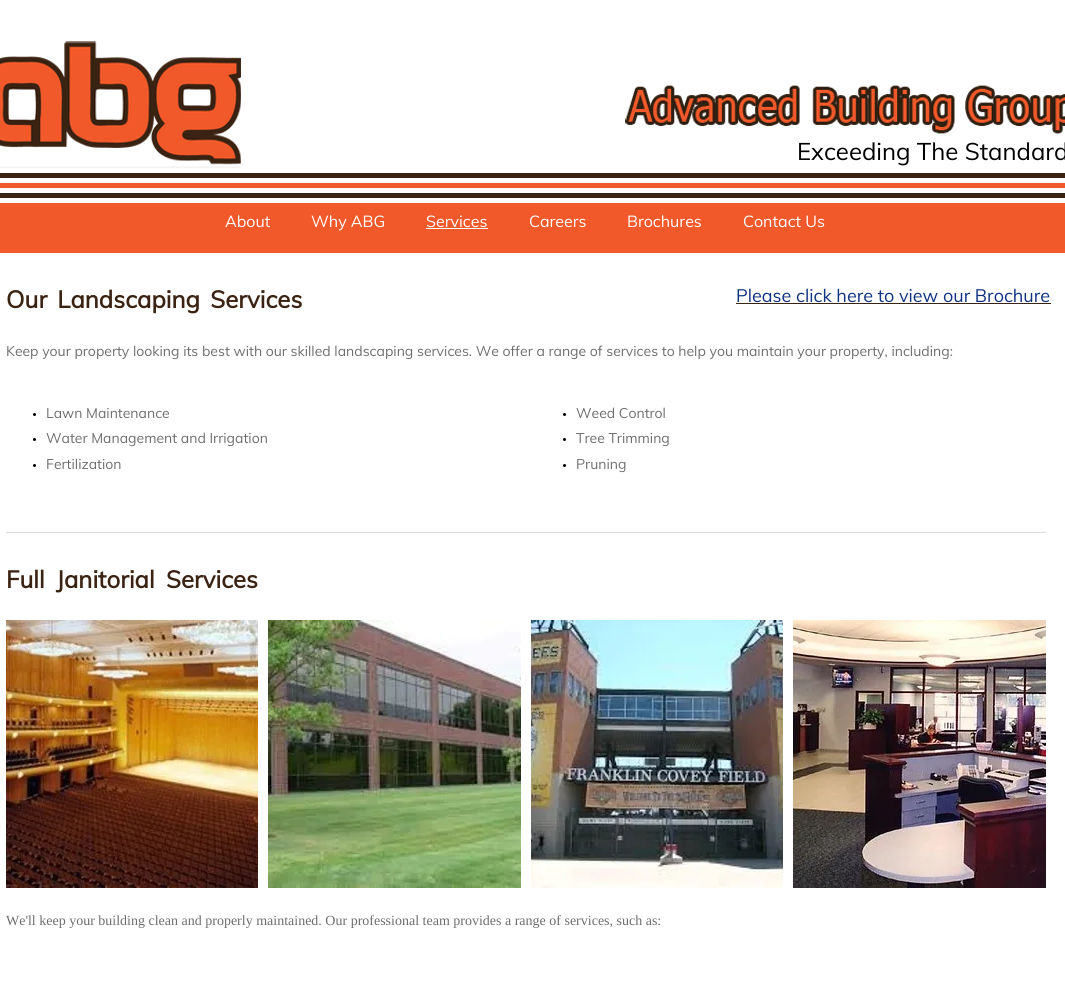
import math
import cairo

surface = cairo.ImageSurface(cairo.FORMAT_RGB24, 1065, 989)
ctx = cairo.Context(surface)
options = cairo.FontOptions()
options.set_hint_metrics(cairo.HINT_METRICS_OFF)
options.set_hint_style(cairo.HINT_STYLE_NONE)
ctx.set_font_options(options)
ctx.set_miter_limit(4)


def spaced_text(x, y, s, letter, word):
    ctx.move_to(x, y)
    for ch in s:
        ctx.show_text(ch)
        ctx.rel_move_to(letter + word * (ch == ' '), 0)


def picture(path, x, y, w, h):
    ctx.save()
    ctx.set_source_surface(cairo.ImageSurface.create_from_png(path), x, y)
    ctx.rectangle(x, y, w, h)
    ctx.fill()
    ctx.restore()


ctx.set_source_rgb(1, 1, 1)
ctx.paint()
picture("img1.png", 0, 41, 241, 127)
picture("img2.png", 625, 85, 440, 49)
ctx.select_font_face("Muli")
ctx.set_font_size(24)
ctx.set_source_rgb(0, 0, 0)
ctx.move_to(797, 160)
ctx.show_text("Exceeding The Standard")
ctx.set_source_rgb(0.227, 0.137, 0.075)
ctx.rectangle(0, 173, 1065, 5)
ctx.fill()
ctx.set_source_rgb(0.945, 0.349, 0.165)
ctx.rectangle(0, 183, 1065, 5)
ctx.fill()
ctx.set_source_rgb(0.227, 0.137, 0.075)
ctx.rectangle(0, 193, 1065, 5)
ctx.fill()
ctx.set_source_rgb(0.945, 0.349, 0.165)
ctx.rectangle(0, 203, 1065, 50)
ctx.fill()
ctx.set_font_size(16)
ctx.set_source_rgb(1, 1, 1)
ctx.move_to(225, 227)
ctx.show_text("About")
ctx.move_to(311, 227)
ctx.show_text("Why ABG")
ctx.move_to(426, 227)
ctx.show_text("Services")
ctx.rectangle(426, 228, 62, 1)
ctx.fill()
ctx.move_to(529, 227)
ctx.show_text("Careers")
ctx.move_to(627, 227)
ctx.show_text("Brochures")
ctx.move_to(743, 227)
ctx.show_text("Contact Us")
ctx.select_font_face("Muli", cairo.FONT_SLANT_NORMAL, cairo.FONT_WEIGHT_BOLD)
ctx.set_font_size(24)
ctx.set_source_rgb(0.231, 0.137, 0.075)
spaced_text(6, 308, "Our Landscaping Services", 0, 4)
ctx.select_font_face("Muli")
ctx.set_font_size(18)
ctx.set_source_rgb(0.063, 0.196, 0.514)
ctx.move_to(736, 302)
ctx.show_text("Please click here to view our Brochure")
ctx.set_source_rgb(0.231, 0.137, 0.075)
ctx.rectangle(736, 303, 315, 1)
ctx.fill()
ctx.set_font_size(14)
ctx.set_source_rgb(0.431, 0.431, 0.431)
ctx.move_to(6, 356)
ctx.show_text("Keep your property looking its best with our skilled landscaping services. We offer a range of services to help you maintain your property, including:")
ctx.set_source_rgb(0, 0, 0)
ctx.new_path()
ctx.arc(34.5, 414.5, 1.5, 0, 2 * math.pi)
ctx.fill()
ctx.set_source_rgb(0.431, 0.431, 0.431)
ctx.move_to(46, 418)
ctx.show_text("Lawn Maintenance")
ctx.set_source_rgb(0, 0, 0)
ctx.new_path()
ctx.arc(34.5, 439.5, 1.5, 0, 2 * math.pi)
ctx.fill()
ctx.set_source_rgb(0.431, 0.431, 0.431)
ctx.move_to(46, 443)
ctx.show_text("Water Management and Irrigation")
ctx.set_source_rgb(0, 0, 0)
ctx.new_path()
ctx.arc(34.5, 465.5, 1.5, 0, 2 * math.pi)
ctx.fill()
ctx.set_source_rgb(0.431, 0.431, 0.431)
ctx.move_to(46, 469)
ctx.show_text("Fertilization")
ctx.set_source_rgb(0, 0, 0)
ctx.new_path()
ctx.arc(564.5, 414.5, 1.5, 0, 2 * math.pi)
ctx.fill()
ctx.set_source_rgb(0.431, 0.431, 0.431)
ctx.move_to(576, 418)
ctx.show_text("Weed Control")
ctx.set_source_rgb(0, 0, 0)
ctx.new_path()
ctx.arc(564.5, 439.5, 1.5, 0, 2 * math.pi)
ctx.fill()
ctx.set_source_rgb(0.431, 0.431, 0.431)
ctx.move_to(576, 443)
ctx.show_text("Tree Trimming")
ctx.set_source_rgb(0, 0, 0)
ctx.new_path()
ctx.arc(564.5, 465.5, 1.5, 0, 2 * math.pi)
ctx.fill()
ctx.set_source_rgb(0.431, 0.431, 0.431)
ctx.move_to(576, 469)
ctx.show_text("Pruning")
ctx.set_source_rgb(0.851, 0.851, 0.851)
ctx.rectangle(6, 532, 1040, 1)
ctx.fill()
ctx.select_font_face("Muli", cairo.FONT_SLANT_NORMAL, cairo.FONT_WEIGHT_BOLD)
ctx.set_font_size(24)
ctx.set_source_rgb(0.231, 0.137, 0.075)
spaced_text(6, 588, "Full Janitorial Services", 0, 5)
picture("img3.png", 6, 620, 252, 268)
picture("img4.png", 268, 620, 253, 268)
picture("img5.png", 531, 620, 252, 268)
picture("img6.png", 793, 620, 253, 268)
ctx.select_font_face("Liberation Serif")
ctx.set_font_size(14)
ctx.set_source_rgb(0.431, 0.431, 0.431)
ctx.move_to(6, 925)
ctx.show_text("We'll keep your building clean and properly maintained. Our professional team provides a range of services, such as:")
surface.write_to_png("page.png")
